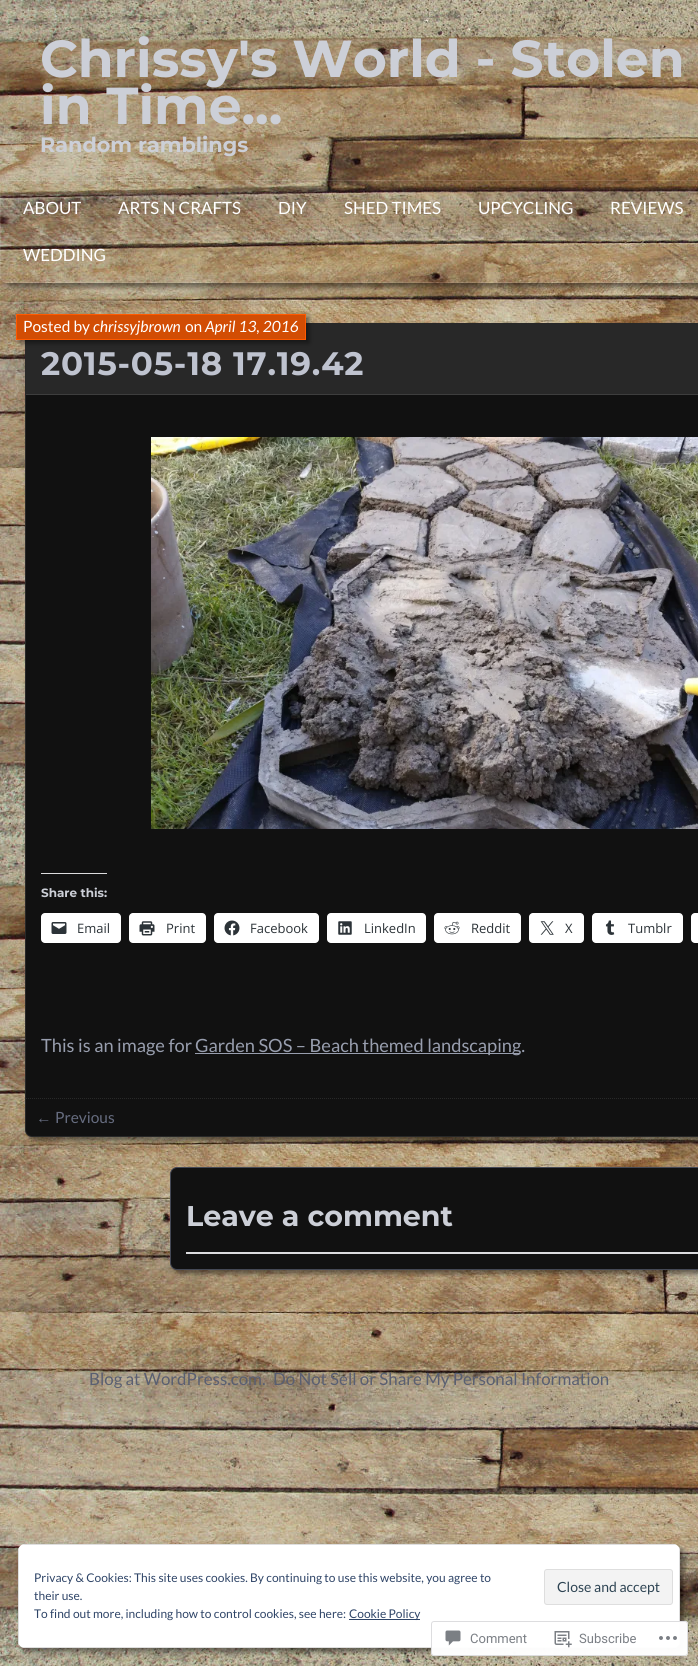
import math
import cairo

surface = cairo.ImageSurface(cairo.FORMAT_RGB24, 698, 1666)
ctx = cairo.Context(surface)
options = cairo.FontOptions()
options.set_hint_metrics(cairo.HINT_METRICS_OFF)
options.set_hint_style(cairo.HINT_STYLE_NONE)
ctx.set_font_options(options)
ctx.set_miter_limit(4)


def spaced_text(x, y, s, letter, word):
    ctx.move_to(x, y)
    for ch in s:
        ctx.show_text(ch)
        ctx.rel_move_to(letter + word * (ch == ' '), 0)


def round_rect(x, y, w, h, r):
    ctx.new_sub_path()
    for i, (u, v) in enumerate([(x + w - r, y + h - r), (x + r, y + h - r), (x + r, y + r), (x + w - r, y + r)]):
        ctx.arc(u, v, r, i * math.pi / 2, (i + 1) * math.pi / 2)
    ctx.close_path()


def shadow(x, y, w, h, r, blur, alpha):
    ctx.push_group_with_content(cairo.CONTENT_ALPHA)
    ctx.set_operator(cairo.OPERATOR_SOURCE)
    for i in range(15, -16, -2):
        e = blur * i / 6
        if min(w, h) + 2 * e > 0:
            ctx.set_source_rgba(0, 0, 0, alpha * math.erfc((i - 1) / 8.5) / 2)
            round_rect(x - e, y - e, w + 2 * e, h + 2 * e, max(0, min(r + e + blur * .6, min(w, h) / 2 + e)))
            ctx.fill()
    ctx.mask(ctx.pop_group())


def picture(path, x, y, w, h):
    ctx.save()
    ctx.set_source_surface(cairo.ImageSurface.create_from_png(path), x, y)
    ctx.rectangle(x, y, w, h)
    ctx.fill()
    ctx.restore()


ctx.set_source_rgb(1, 1, 1)
ctx.paint()
picture("img1.png", 0, 0, 698, 1666)
ctx.select_font_face("Montserrat Thin")
ctx.set_font_size(52)
ctx.set_source_rgb(0.8, 0.812, 0.843)
ctx.move_to(40, 77)
ctx.show_text("Chrissy's World - Stolen")
ctx.move_to(40, 124)
ctx.show_text("in Time...")
ctx.set_font_size(20.75)
ctx.move_to(40, 152)
ctx.show_text("Random ramblings")
ctx.save()
ctx.set_fill_rule(cairo.FILL_RULE_EVEN_ODD)
ctx.new_path()
ctx.move_to(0, 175)
ctx.line_to(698, 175)
ctx.line_to(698, 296)
ctx.line_to(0, 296)
ctx.close_path()
ctx.move_to(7, 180)
ctx.line_to(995, 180)
ctx.curve_to(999, 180, 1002, 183, 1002, 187)
ctx.line_to(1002, 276)
ctx.curve_to(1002, 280, 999, 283, 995, 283)
ctx.line_to(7, 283)
ctx.curve_to(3, 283, 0, 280, 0, 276)
ctx.line_to(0, 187)
ctx.curve_to(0, 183, 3, 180, 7, 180)
ctx.close_path()
ctx.clip()
ctx.set_source_rgb(0, 0, 0)
shadow(4, 184, 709, 103, 7, 2.5, 0.45)
ctx.restore()
round_rect(0.5, 180.5, 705, 102, 6.5)
ctx.set_source_rgba(1, 1, 1, 0.1)
ctx.set_line_width(1)
ctx.stroke()
ctx.select_font_face("Lato")
ctx.set_font_size(16.9)
ctx.set_source_rgb(1, 1, 1)
ctx.move_to(23, 214)
ctx.show_text("ABOUT")
ctx.move_to(118, 214)
ctx.show_text("ARTS N CRAFTS")
ctx.move_to(278, 214)
ctx.show_text("DIY")
ctx.move_to(344, 214)
ctx.show_text("SHED TIMES")
ctx.move_to(478, 214)
ctx.show_text("UPCYCLING")
ctx.move_to(610, 214)
ctx.show_text("REVIEWS")
ctx.move_to(23, 261)
ctx.show_text("WEDDING")
ctx.set_source_rgb(0, 0, 0)
shadow(29, 327, 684, 814, 7, 2.5, 0.45)
ctx.set_source_rgb(0.067, 0.067, 0.067)
round_rect(25, 323, 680, 814, 7)
ctx.fill()
round_rect(25.5, 323.5, 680, 813, 6.5)
ctx.set_source_rgba(1, 1, 1, 0.1)
ctx.stroke()
ctx.rectangle(26, 324, 672, 70)
ctx.fill()
ctx.set_source_rgb(0.243, 0.243, 0.243)
ctx.rectangle(26, 394, 672, 1)
ctx.fill()
ctx.set_source_rgb(0, 0, 0)
shadow(19, 317, 290, 26, 0, 2.5, 0.45)
ctx.set_source_rgb(0.824, 0.302, 0.016)
ctx.rectangle(16.5, 314.5, 289, 25)
ctx.fill_preserve()
ctx.set_source_rgb(1, 0.353, 0)
ctx.stroke()
ctx.set_font_size(15.5)
ctx.set_source_rgb(1, 1, 1)
ctx.move_to(23, 332)
ctx.show_text("Posted by")
ctx.select_font_face("Lato", cairo.FONT_SLANT_ITALIC)
ctx.move_to(93, 332)
ctx.show_text("chrissyjbrown")
ctx.select_font_face("Lato")
ctx.move_to(185, 332)
ctx.show_text("on")
ctx.select_font_face("Lato", cairo.FONT_SLANT_ITALIC)
ctx.move_to(205, 332)
ctx.show_text("April 13, 2016")
ctx.select_font_face("Montserrat Thin")
ctx.set_font_size(32.5)
ctx.set_source_rgb(0.749, 0.765, 0.812)
spaced_text(41, 375, "2015-05-18 17.19.42", 0.8, 0)
picture("img2.png", 151, 437, 547, 392)
ctx.set_source_rgb(0.863, 0.863, 0.871)
ctx.rectangle(41, 873, 66, 1)
ctx.fill()
ctx.set_font_size(12)
ctx.set_source_rgb(0.8, 0.812, 0.843)
ctx.move_to(41, 897)
ctx.show_text("Share this:")
ctx.set_source_rgb(1, 1, 1)
round_rect(41, 913, 80, 30, 4)
ctx.fill()
picture("img3.png", 51, 922, 16, 12)
ctx.select_font_face("Open Sans")
ctx.set_font_size(13)
ctx.set_source_rgb(0.173, 0.2, 0.22)
ctx.move_to(77, 933)
ctx.show_text("Email")
ctx.set_source_rgb(1, 1, 1)
round_rect(129, 913, 77, 30, 4)
ctx.fill()
picture("img4.png", 139, 921, 16, 15)
ctx.set_source_rgb(0.173, 0.2, 0.22)
ctx.move_to(166, 933)
ctx.show_text("Print")
ctx.set_source_rgb(1, 1, 1)
round_rect(214, 913, 105, 30, 4)
ctx.fill()
picture("img5.png", 224, 920, 16, 16)
ctx.set_source_rgb(0.173, 0.2, 0.22)
ctx.move_to(250, 933)
ctx.show_text("Facebook")
ctx.set_source_rgb(1, 1, 1)
round_rect(327, 913, 99, 30, 4)
ctx.fill()
picture("img6.png", 338, 921, 14, 14)
ctx.set_source_rgb(0.173, 0.2, 0.22)
ctx.move_to(364, 933)
ctx.show_text("LinkedIn")
ctx.set_source_rgb(1, 1, 1)
round_rect(434, 913, 87, 30, 4)
ctx.fill()
picture("img7.png", 444, 921, 16, 14)
ctx.set_source_rgb(0.173, 0.2, 0.22)
ctx.move_to(471, 933)
ctx.show_text("Reddit")
ctx.set_source_rgb(1, 1, 1)
round_rect(529, 913, 55, 30, 4)
ctx.fill()
picture("img8.png", 540, 921, 14, 14)
ctx.set_source_rgb(0.173, 0.2, 0.22)
ctx.move_to(565, 933)
ctx.show_text("X")
ctx.set_source_rgb(1, 1, 1)
round_rect(592, 913, 91, 30, 4)
ctx.fill()
picture("img9.png", 605, 920, 10, 15)
ctx.set_source_rgb(0.173, 0.2, 0.22)
ctx.move_to(628, 933)
ctx.show_text("Tumblr")
ctx.set_source_rgb(1, 1, 1)
round_rect(691, 913, 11, 30, 4)
ctx.fill()
ctx.select_font_face("Lato")
ctx.set_font_size(18.25)
ctx.set_source_rgb(0.596, 0.62, 0.682)
ctx.move_to(41, 1052)
ctx.show_text("This is an image for")
ctx.rectangle(195, 1053, 325, 1)
ctx.fill()
ctx.move_to(195, 1052)
ctx.show_text("Garden SOS – Beach themed landscaping.")
ctx.new_path()
ctx.move_to(26, 1098.5)
ctx.line_to(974, 1098.5)
ctx.set_source_rgb(0.161, 0.161, 0.161)
ctx.set_dash([1, 1])
ctx.stroke()
ctx.select_font_face("Liberation Sans")
ctx.set_font_size(15.5)
ctx.set_source_rgb(0.4, 0.424, 0.498)
ctx.move_to(36, 1123)
ctx.show_text("←")
ctx.select_font_face("Lato")
ctx.move_to(55, 1123)
ctx.show_text("Previous")
ctx.set_source_rgb(0, 0, 0)
shadow(174, 1171, 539, 103, 7, 2.5, 0.45)
ctx.set_source_rgb(0.067, 0.067, 0.067)
round_rect(170.5, 1167.5, 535, 102, 6.5)
ctx.fill_preserve()
ctx.set_source_rgb(0.267, 0.282, 0.333)
ctx.set_dash([])
ctx.stroke()
ctx.select_font_face("Montserrat Thin")
ctx.set_font_size(28.5)
ctx.set_source_rgb(0.8, 0.812, 0.843)
ctx.move_to(186, 1226)
ctx.show_text("Leave a comment")
ctx.set_source_rgb(0.863, 0.863, 0.871)
ctx.rectangle(186, 1252, 512, 2)
ctx.fill()
ctx.select_font_face("Lato")
ctx.set_font_size(16.9)
ctx.set_source_rgb(0.353, 0.373, 0.443)
ctx.move_to(89, 1385)
ctx.show_text("Blog at WordPress.com.")
ctx.move_to(273, 1385)
ctx.show_text("Do Not Sell or Share My Personal Information")
ctx.set_source_rgb(0, 0, 0)
shadow(22, 1548, 662, 104, 7, 2.5, 0.45)
ctx.set_source_rgb(1, 1, 1)
round_rect(18, 1544, 662, 104, 7)
ctx.fill()
ctx.set_source_rgb(0.871, 0.871, 0.871)
ctx.set_fill_rule(cairo.FILL_RULE_EVEN_ODD)
ctx.new_path()
ctx.move_to(18, 1551)
ctx.line_to(18, 1641)
ctx.curve_to(18, 1642, 18, 1644, 19, 1645)
ctx.line_to(19, 1547)
ctx.close_path()
ctx.move_to(25, 1544)
ctx.line_to(21, 1545)
ctx.line_to(677, 1545)
ctx.line_to(673, 1544)
ctx.close_path()
ctx.move_to(680, 1551)
ctx.line_to(679, 1547)
ctx.line_to(679, 1645)
ctx.curve_to(680, 1644, 680, 1642, 680, 1641)
ctx.close_path()
ctx.move_to(673, 1648)
ctx.line_to(677, 1647)
ctx.line_to(21, 1647)
ctx.line_to(25, 1648)
ctx.close_path()
ctx.fill()
ctx.set_font_size(12)
ctx.set_source_rgb(0.18, 0.267, 0.404)
ctx.move_to(34, 1582)
ctx.show_text("Privacy & Cookies: This site uses cookies. By continuing to use this website, you agree to")
ctx.set_source_rgb(0.953, 0.953, 0.953)
round_rect(544.5, 1569.5, 128, 35, 2.5)
ctx.fill_preserve()
ctx.set_source_rgb(0.871, 0.871, 0.871)
ctx.stroke()
ctx.set_font_size(14)
ctx.set_source_rgb(0.18, 0.267, 0.325)
ctx.move_to(557, 1592)
ctx.show_text("Close and accept")
ctx.set_font_size(12)
ctx.set_source_rgb(0.18, 0.267, 0.404)
ctx.move_to(34, 1600)
ctx.show_text("their use.")
ctx.move_to(34, 1618)
ctx.show_text("To find out more, including how to control cookies, see here:")
ctx.rectangle(349, 1619, 71, 1)
ctx.fill()
ctx.move_to(349, 1618)
ctx.show_text("Cookie Policy")
ctx.set_source_rgba(1, 1, 1, 0.98)
round_rect(431, 1621, 257, 35, 3)
ctx.fill()
round_rect(431.5, 1621.5, 256, 34, 2.5)
ctx.set_source_rgba(0.863, 0.863, 0.871, 0.98)
ctx.stroke()
picture("img10.png", 445, 1630, 16, 16)
ctx.select_font_face("Roboto")
ctx.set_font_size(13)
ctx.set_source_rgb(0.482, 0.498, 0.522)
ctx.move_to(470, 1643)
ctx.show_text("Comment")
picture("img11.png", 554, 1631, 18, 17)
ctx.move_to(579, 1643)
ctx.show_text("Subscribe")
picture("img12.png", 659, 1636, 18, 4)
surface.write_to_png("page.png")
